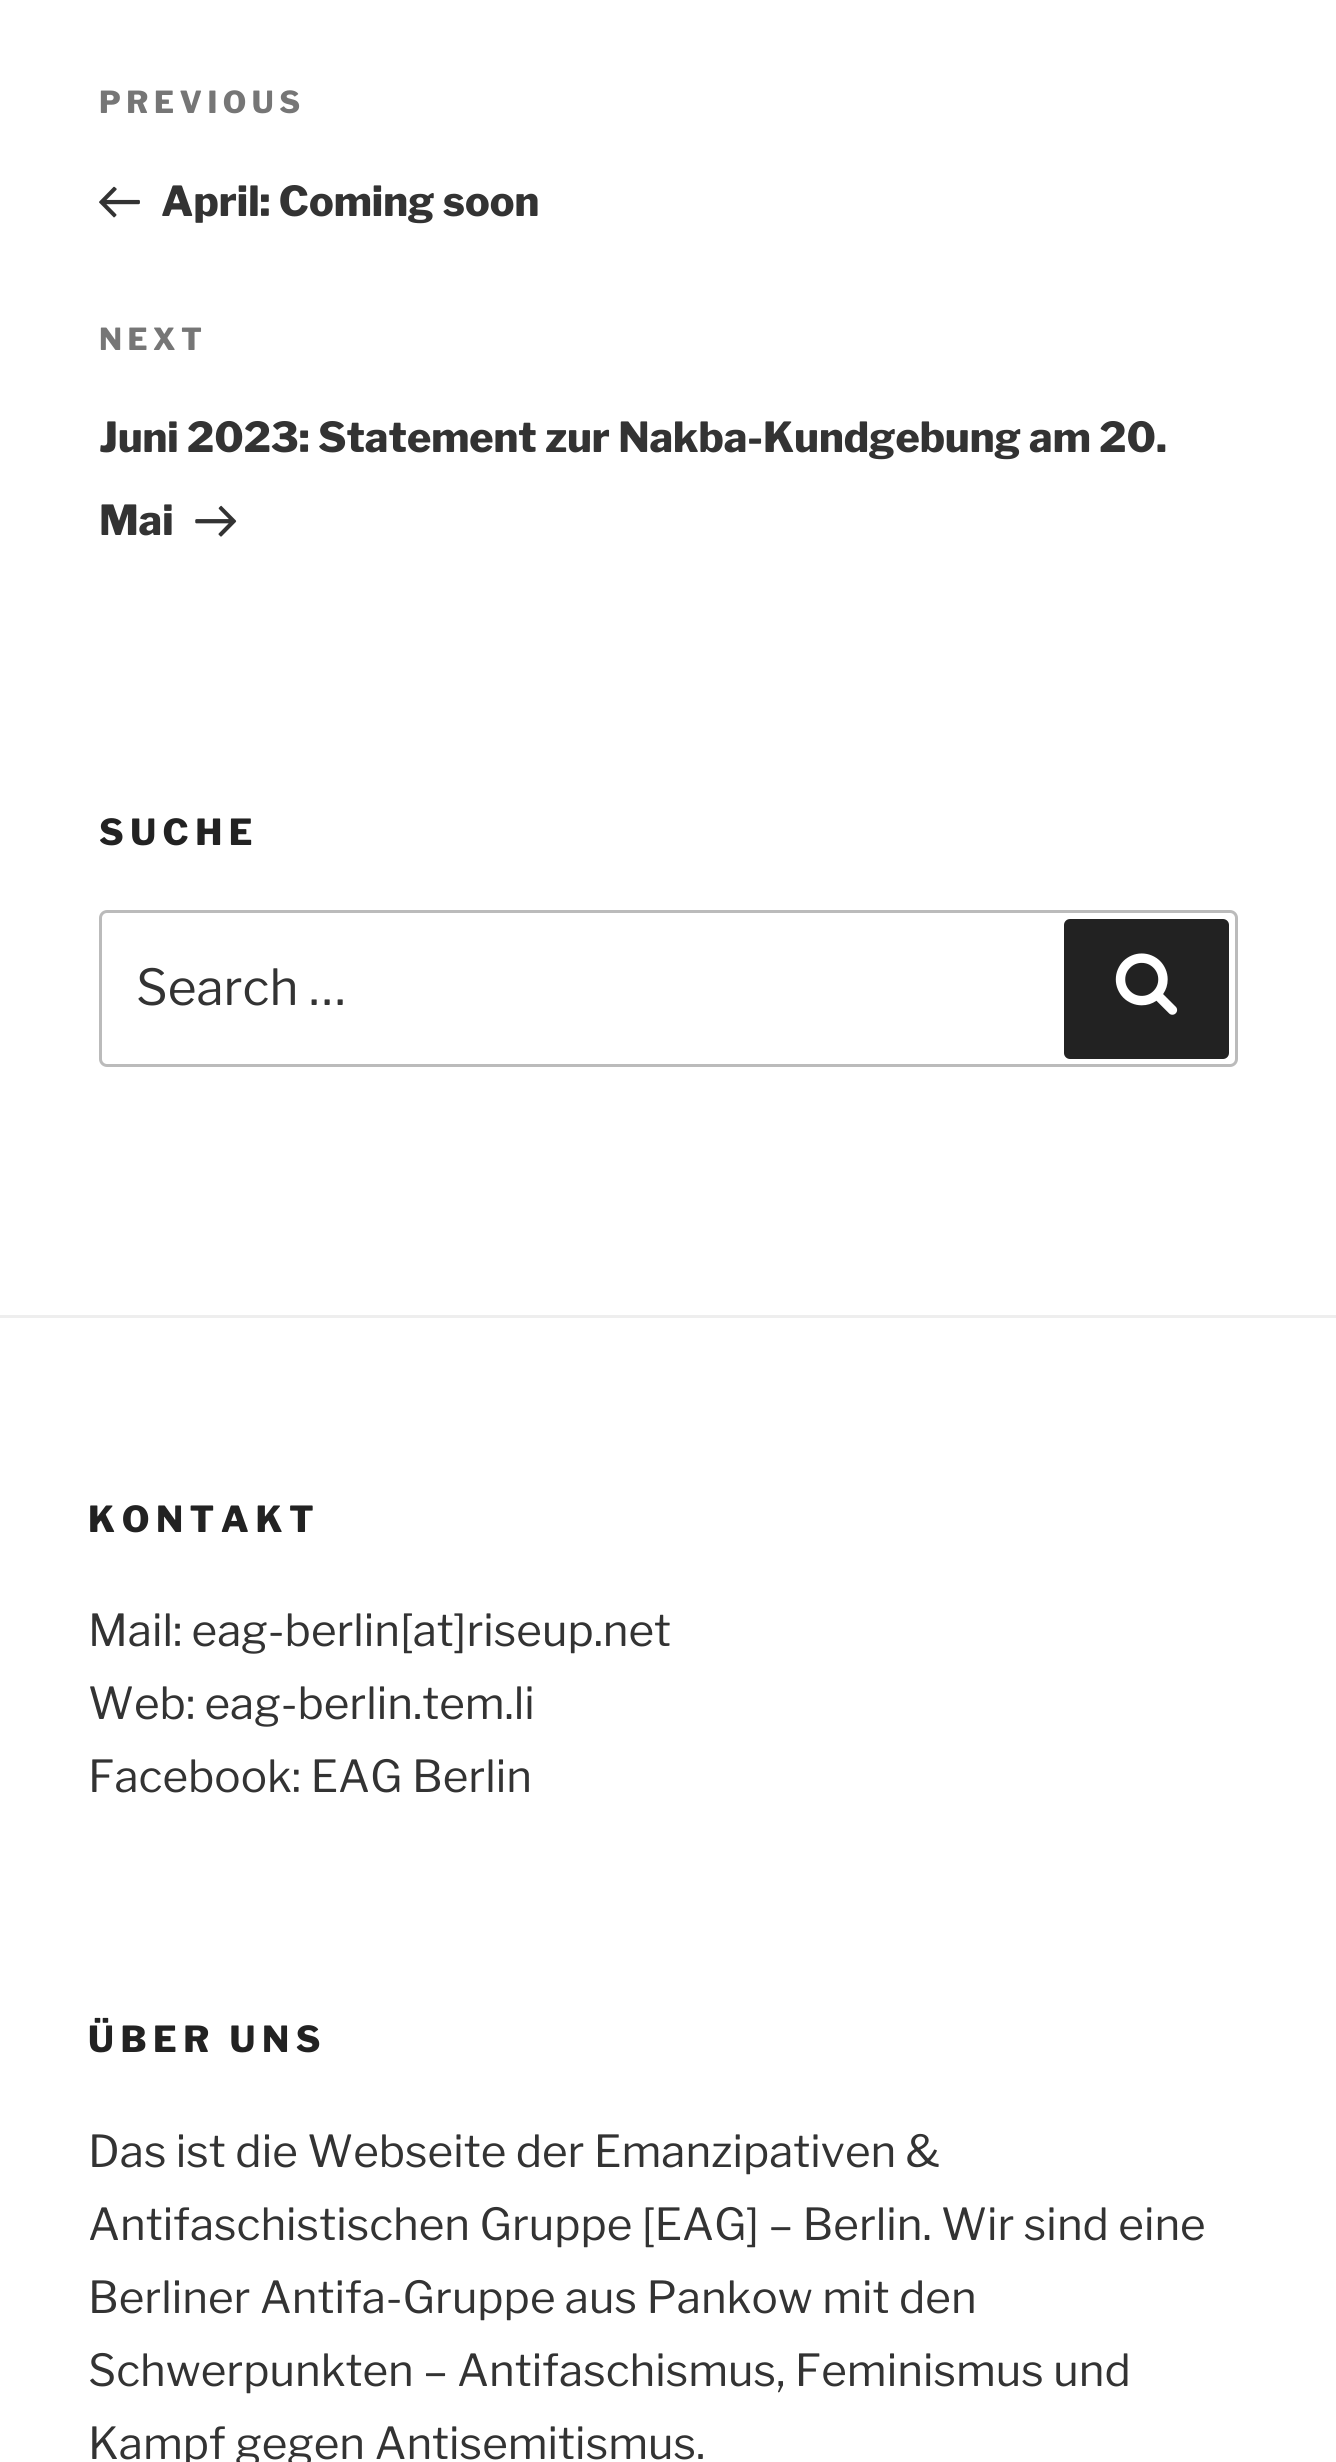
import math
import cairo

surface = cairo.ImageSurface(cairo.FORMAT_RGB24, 1336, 2462)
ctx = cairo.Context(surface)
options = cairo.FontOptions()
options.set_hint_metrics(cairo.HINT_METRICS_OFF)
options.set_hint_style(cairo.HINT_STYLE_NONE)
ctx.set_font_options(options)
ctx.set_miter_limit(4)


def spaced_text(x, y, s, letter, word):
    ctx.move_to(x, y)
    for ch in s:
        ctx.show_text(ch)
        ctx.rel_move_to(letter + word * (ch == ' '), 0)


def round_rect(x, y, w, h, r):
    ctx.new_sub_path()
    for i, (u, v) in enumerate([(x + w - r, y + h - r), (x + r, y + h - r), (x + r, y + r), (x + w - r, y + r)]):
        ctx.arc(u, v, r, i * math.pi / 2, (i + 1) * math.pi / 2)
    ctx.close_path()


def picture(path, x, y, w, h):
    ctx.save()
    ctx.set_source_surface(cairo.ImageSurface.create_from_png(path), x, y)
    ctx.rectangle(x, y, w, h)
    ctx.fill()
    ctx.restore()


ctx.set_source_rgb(1, 1, 1)
ctx.paint()
ctx.select_font_face("Libre Franklin Thin")
ctx.set_font_size(30.25)
ctx.set_source_rgb(0.463, 0.463, 0.463)
spaced_text(99, 113, "PREVIOUS", 5.5, 0)
picture("img1.png", 99, 186, 41, 32)
ctx.set_font_size(41.25)
ctx.set_source_rgb(0.2, 0.2, 0.2)
ctx.move_to(161, 216)
ctx.show_text("April: Coming soon")
ctx.set_font_size(30.25)
ctx.set_source_rgb(0.463, 0.463, 0.463)
spaced_text(99, 350, "NEXT", 5.5, 0)
ctx.set_font_size(41.25)
ctx.set_source_rgb(0.2, 0.2, 0.2)
ctx.move_to(99, 452)
ctx.show_text("Juni 2023: Statement zur Nakba-Kundgebung am 20.")
ctx.move_to(99, 535)
ctx.show_text("Mai")
picture("img2.png", 195, 505, 42, 32)
ctx.set_font_size(35.75)
ctx.set_source_rgb(0.133, 0.133, 0.133)
spaced_text(99, 845, "SUCHE", 6.5, 0)
round_rect(100.5, 911.5, 1136, 154, 6.5)
ctx.set_source_rgb(0.733, 0.733, 0.733)
ctx.set_line_width(3)
ctx.stroke()
ctx.select_font_face("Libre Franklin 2 Thin")
ctx.set_font_size(49.5)
ctx.set_source_rgb(0.2, 0.2, 0.2)
ctx.move_to(136, 1005)
ctx.show_text("Search …")
ctx.set_source_rgb(0.133, 0.133, 0.133)
round_rect(1064, 919, 165, 140, 6)
ctx.fill()
picture("img3.png", 1115, 953, 63, 62)
ctx.set_source_rgb(0.933, 0.933, 0.933)
ctx.rectangle(0, 1315, 1336, 3)
ctx.fill()
ctx.select_font_face("Libre Franklin Thin")
ctx.set_font_size(35.75)
ctx.set_source_rgb(0.133, 0.133, 0.133)
spaced_text(88, 1532, "KONTAKT", 6.5, 0)
ctx.select_font_face("Libre Franklin 2 Thin")
ctx.set_font_size(44)
ctx.set_source_rgb(0.2, 0.2, 0.2)
ctx.move_to(88, 1646)
ctx.show_text("Mail: eag-berlin[at]riseup.net")
ctx.move_to(88, 1719)
ctx.show_text("Web: eag-berlin.tem.li")
ctx.move_to(88, 1792)
ctx.show_text("Facebook: EAG Berlin")
ctx.select_font_face("Libre Franklin Thin")
ctx.set_font_size(35.75)
ctx.set_source_rgb(0.133, 0.133, 0.133)
spaced_text(88, 2052, "ÜBER UNS", 6.5, 0)
ctx.select_font_face("Libre Franklin 2 Thin")
ctx.set_font_size(44)
ctx.set_source_rgb(0.2, 0.2, 0.2)
ctx.move_to(88, 2167)
ctx.show_text("Das ist die Webseite der Emanzipativen &")
ctx.move_to(88, 2240)
ctx.show_text("Antifaschistischen Gruppe [EAG] – Berlin. Wir sind eine")
ctx.move_to(88, 2313)
ctx.show_text("Berliner Antifa-Gruppe aus Pankow mit den")
ctx.move_to(88, 2386)
ctx.show_text("Schwerpunkten – Antifaschismus, Feminismus und")
ctx.move_to(88, 2459)
ctx.show_text("Kampf gegen Antisemitismus.")
surface.write_to_png("page.png")
